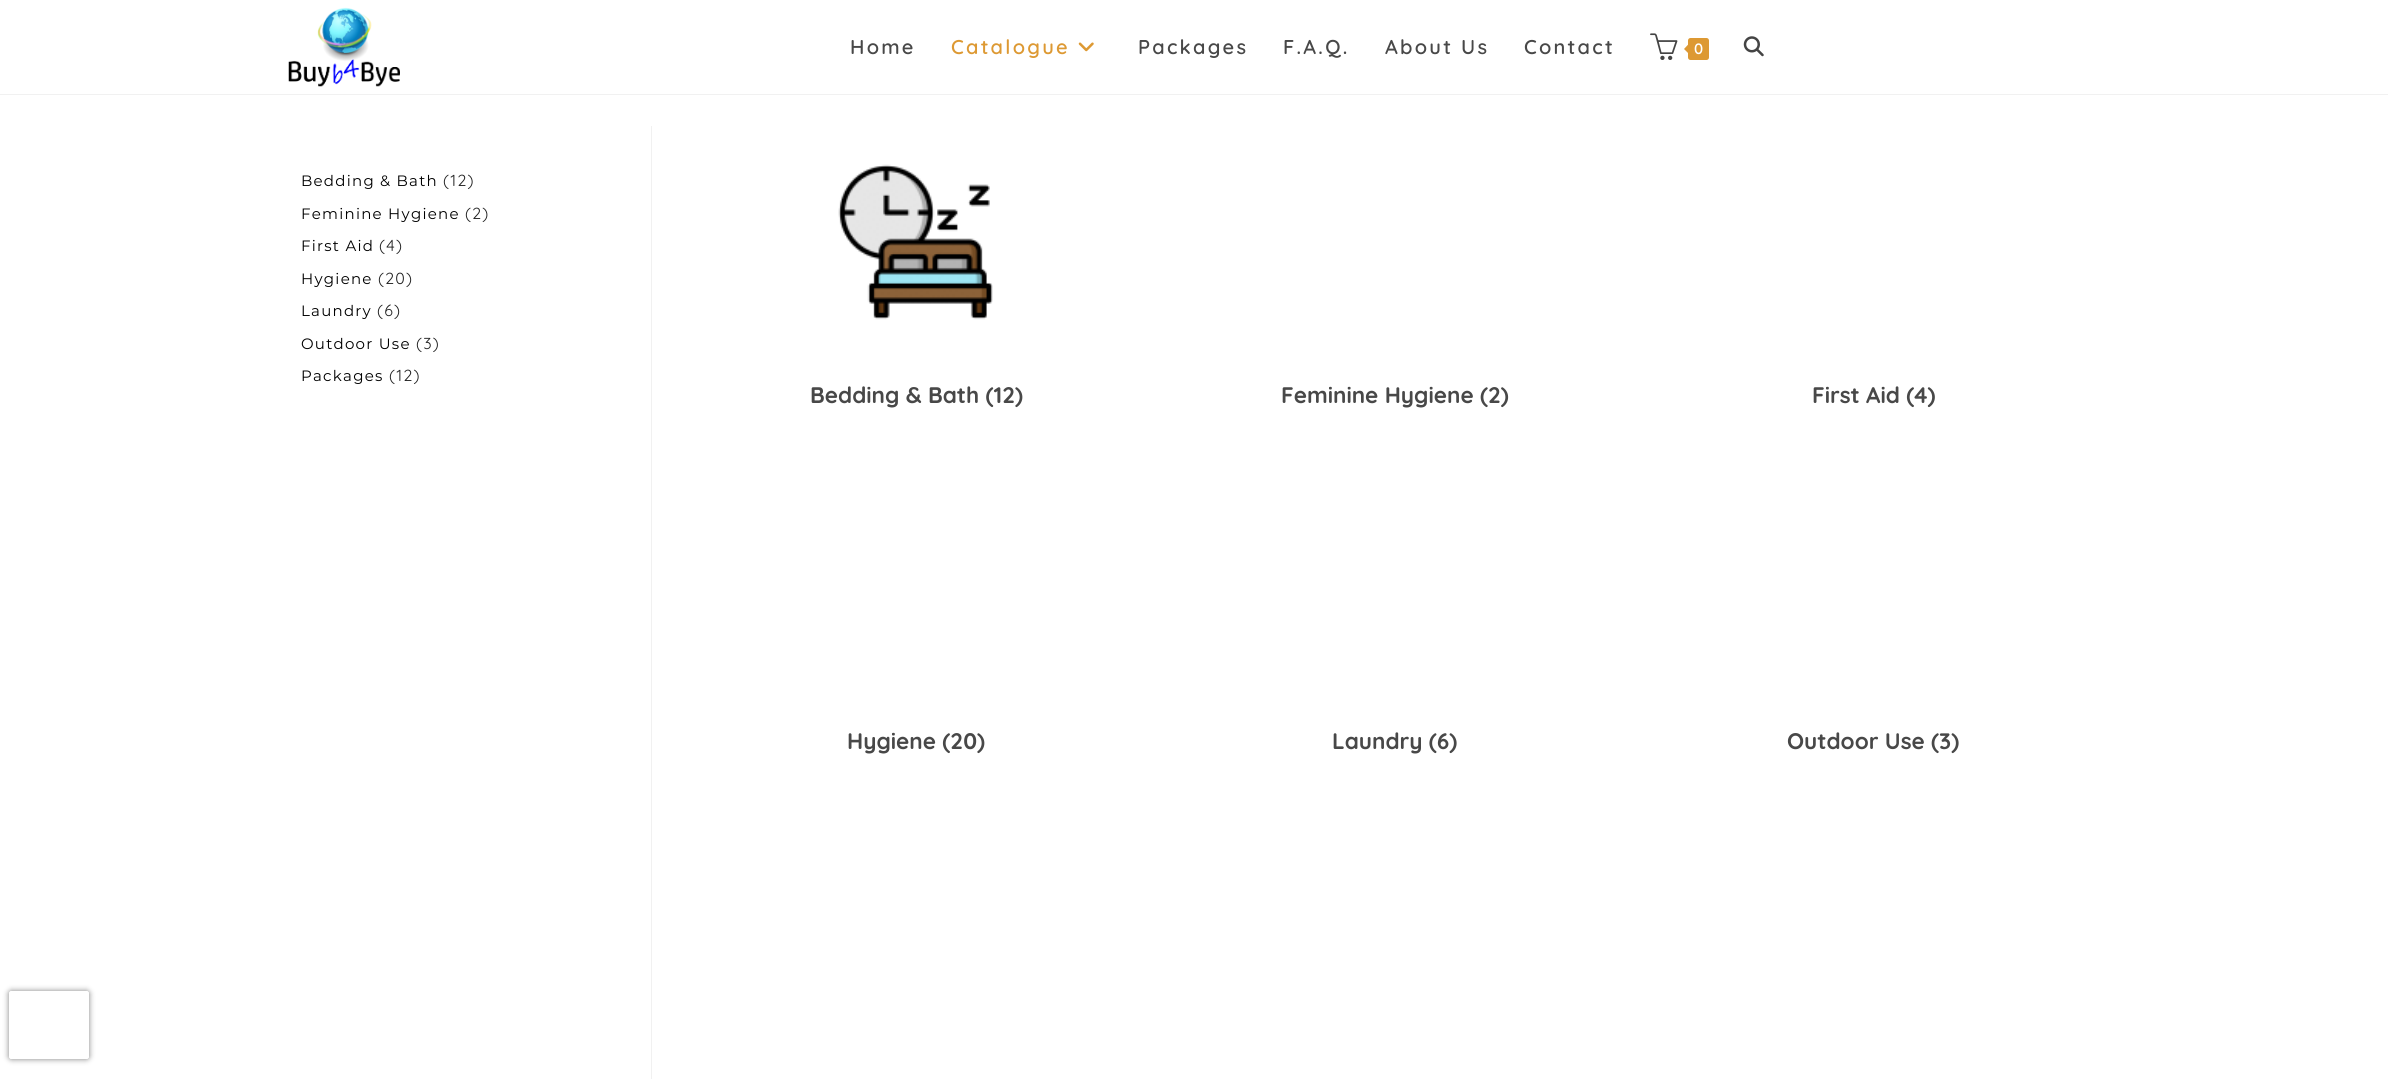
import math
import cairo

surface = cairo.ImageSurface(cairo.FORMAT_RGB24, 2388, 1079)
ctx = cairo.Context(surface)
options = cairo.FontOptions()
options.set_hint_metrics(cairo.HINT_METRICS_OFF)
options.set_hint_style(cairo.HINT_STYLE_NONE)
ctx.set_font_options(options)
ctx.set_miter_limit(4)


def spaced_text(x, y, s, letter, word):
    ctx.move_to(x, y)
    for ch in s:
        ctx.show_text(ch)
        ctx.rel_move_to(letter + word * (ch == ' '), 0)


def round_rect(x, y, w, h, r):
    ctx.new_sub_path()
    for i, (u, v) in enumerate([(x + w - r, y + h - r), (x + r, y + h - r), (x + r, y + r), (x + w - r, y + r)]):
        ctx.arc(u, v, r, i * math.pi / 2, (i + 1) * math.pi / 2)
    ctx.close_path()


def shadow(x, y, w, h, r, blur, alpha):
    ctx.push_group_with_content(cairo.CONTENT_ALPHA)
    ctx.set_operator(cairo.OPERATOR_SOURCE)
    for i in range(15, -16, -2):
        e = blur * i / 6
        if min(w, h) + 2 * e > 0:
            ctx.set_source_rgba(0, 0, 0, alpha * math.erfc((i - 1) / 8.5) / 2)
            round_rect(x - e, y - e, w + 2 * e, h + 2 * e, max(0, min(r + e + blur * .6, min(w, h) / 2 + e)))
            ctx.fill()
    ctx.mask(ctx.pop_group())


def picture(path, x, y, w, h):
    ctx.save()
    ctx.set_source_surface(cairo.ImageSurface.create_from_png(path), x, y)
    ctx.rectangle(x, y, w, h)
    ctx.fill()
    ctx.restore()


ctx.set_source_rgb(1, 1, 1)
ctx.paint()
ctx.set_source_rgb(0.945, 0.945, 0.945)
ctx.rectangle(0, 94, 2388, 1)
ctx.fill()
picture("img1.png", 288, 7, 112, 80)
ctx.select_font_face("Quicksand SemiBold")
ctx.set_font_size(20)
ctx.set_source_rgb(0.282, 0.282, 0.282)
spaced_text(850, 54, "Home", 2.25, 0)
ctx.set_source_rgb(0.867, 0.6, 0.2)
spaced_text(951, 54, "Catalogue", 2.25, 0)
picture("img2.png", 1078, 42, 16, 10)
ctx.set_source_rgb(0.282, 0.282, 0.282)
spaced_text(1138, 54, "Packages", 2.25, 0)
spaced_text(1283, 54, "F.A.Q.", 2.25, 0)
spaced_text(1385, 54, "About Us", 2.25, 0)
spaced_text(1524, 54, "Contact", 2.25, 0)
picture("img3.png", 1650, 33, 28, 27)
ctx.set_source_rgb(0.867, 0.6, 0.2)
round_rect(1688, 38, 21, 22, 2.5)
ctx.fill()
ctx.new_path()
ctx.move_to(1690, 42.5)
ctx.line_to(1690, 55)
ctx.line_to(1684, 49)
ctx.close_path()
ctx.fill()
ctx.set_font_size(15)
ctx.set_source_rgb(1, 1, 1)
ctx.move_to(1694, 54)
ctx.show_text("0")
picture("img4.png", 1743, 36, 21, 21)
ctx.select_font_face("Montserrat")
ctx.set_source_rgb(0, 0, 0)
spaced_text(301, 186, "Bedding & Bath", 1.25, 0)
ctx.select_font_face("Quicksand")
ctx.set_font_size(16)
ctx.set_source_rgb(0.133, 0.133, 0.133)
spaced_text(443, 186, "(12)", 1.25, 0)
ctx.select_font_face("Montserrat")
ctx.set_font_size(15)
ctx.set_source_rgb(0, 0, 0)
spaced_text(301, 219, "Feminine Hygiene", 1.25, 0)
ctx.select_font_face("Quicksand")
ctx.set_font_size(16)
ctx.set_source_rgb(0.133, 0.133, 0.133)
spaced_text(465, 219, "(2)", 1.25, 0)
ctx.select_font_face("Montserrat")
ctx.set_font_size(15)
ctx.set_source_rgb(0, 0, 0)
spaced_text(301, 251, "First Aid", 1.25, 0)
ctx.select_font_face("Quicksand")
ctx.set_font_size(16)
ctx.set_source_rgb(0.133, 0.133, 0.133)
spaced_text(379, 251, "(4)", 1.25, 0)
ctx.select_font_face("Montserrat")
ctx.set_font_size(15)
ctx.set_source_rgb(0, 0, 0)
spaced_text(301, 284, "Hygiene", 1.25, 0)
ctx.select_font_face("Quicksand")
ctx.set_font_size(16)
ctx.set_source_rgb(0.133, 0.133, 0.133)
spaced_text(378, 284, "(20)", 1.25, 0)
ctx.select_font_face("Montserrat")
ctx.set_font_size(15)
ctx.set_source_rgb(0, 0, 0)
spaced_text(301, 316, "Laundry", 1.25, 0)
ctx.select_font_face("Quicksand")
ctx.set_font_size(16)
ctx.set_source_rgb(0.133, 0.133, 0.133)
spaced_text(377, 316, "(6)", 1.25, 0)
ctx.select_font_face("Montserrat")
ctx.set_font_size(15)
ctx.set_source_rgb(0, 0, 0)
spaced_text(301, 349, "Outdoor Use", 1.25, 0)
ctx.select_font_face("Quicksand")
ctx.set_font_size(16)
ctx.set_source_rgb(0.133, 0.133, 0.133)
spaced_text(416, 349, "(3)", 1.25, 0)
ctx.select_font_face("Montserrat")
ctx.set_font_size(15)
ctx.set_source_rgb(0, 0, 0)
spaced_text(301, 381, "Packages", 1.25, 0)
ctx.select_font_face("Quicksand")
ctx.set_font_size(16)
ctx.set_source_rgb(0.133, 0.133, 0.133)
spaced_text(389, 381, "(12)", 1.25, 0)
ctx.set_source_rgb(0.945, 0.945, 0.945)
ctx.rectangle(651, 126, 1, 953)
ctx.fill()
picture("img5.png", 838, 164, 155, 156)
ctx.select_font_face("Quicksand", cairo.FONT_SLANT_NORMAL, cairo.FONT_WEIGHT_BOLD)
ctx.set_font_size(22.5)
ctx.set_source_rgb(0.282, 0.282, 0.282)
ctx.move_to(810, 403)
ctx.show_text("Bedding & Bath (12)")
ctx.move_to(1281, 403)
ctx.show_text("Feminine Hygiene (2)")
ctx.move_to(1812, 403)
ctx.show_text("First Aid (4)")
ctx.move_to(847, 749)
ctx.show_text("Hygiene (20)")
ctx.move_to(1332, 749)
ctx.show_text("Laundry (6)")
ctx.move_to(1787, 749)
ctx.show_text("Outdoor Use (3)")
ctx.save()
ctx.set_fill_rule(cairo.FILL_RULE_EVEN_ODD)
ctx.new_path()
ctx.move_to(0, 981)
ctx.line_to(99, 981)
ctx.line_to(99, 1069)
ctx.line_to(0, 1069)
ctx.close_path()
ctx.move_to(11.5, 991)
ctx.line_to(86.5, 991)
ctx.curve_to(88, 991, 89, 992, 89, 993.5)
ctx.line_to(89, 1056.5)
ctx.curve_to(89, 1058, 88, 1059, 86.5, 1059)
ctx.line_to(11.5, 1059)
ctx.curve_to(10, 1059, 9, 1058, 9, 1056.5)
ctx.line_to(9, 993.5)
ctx.curve_to(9, 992, 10, 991, 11.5, 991)
ctx.close_path()
ctx.clip()
ctx.set_source_rgb(0.502, 0.502, 0.502)
shadow(9, 991, 80, 68, 2.5, 3, 1)
ctx.restore()
surface.write_to_png("page.png")
